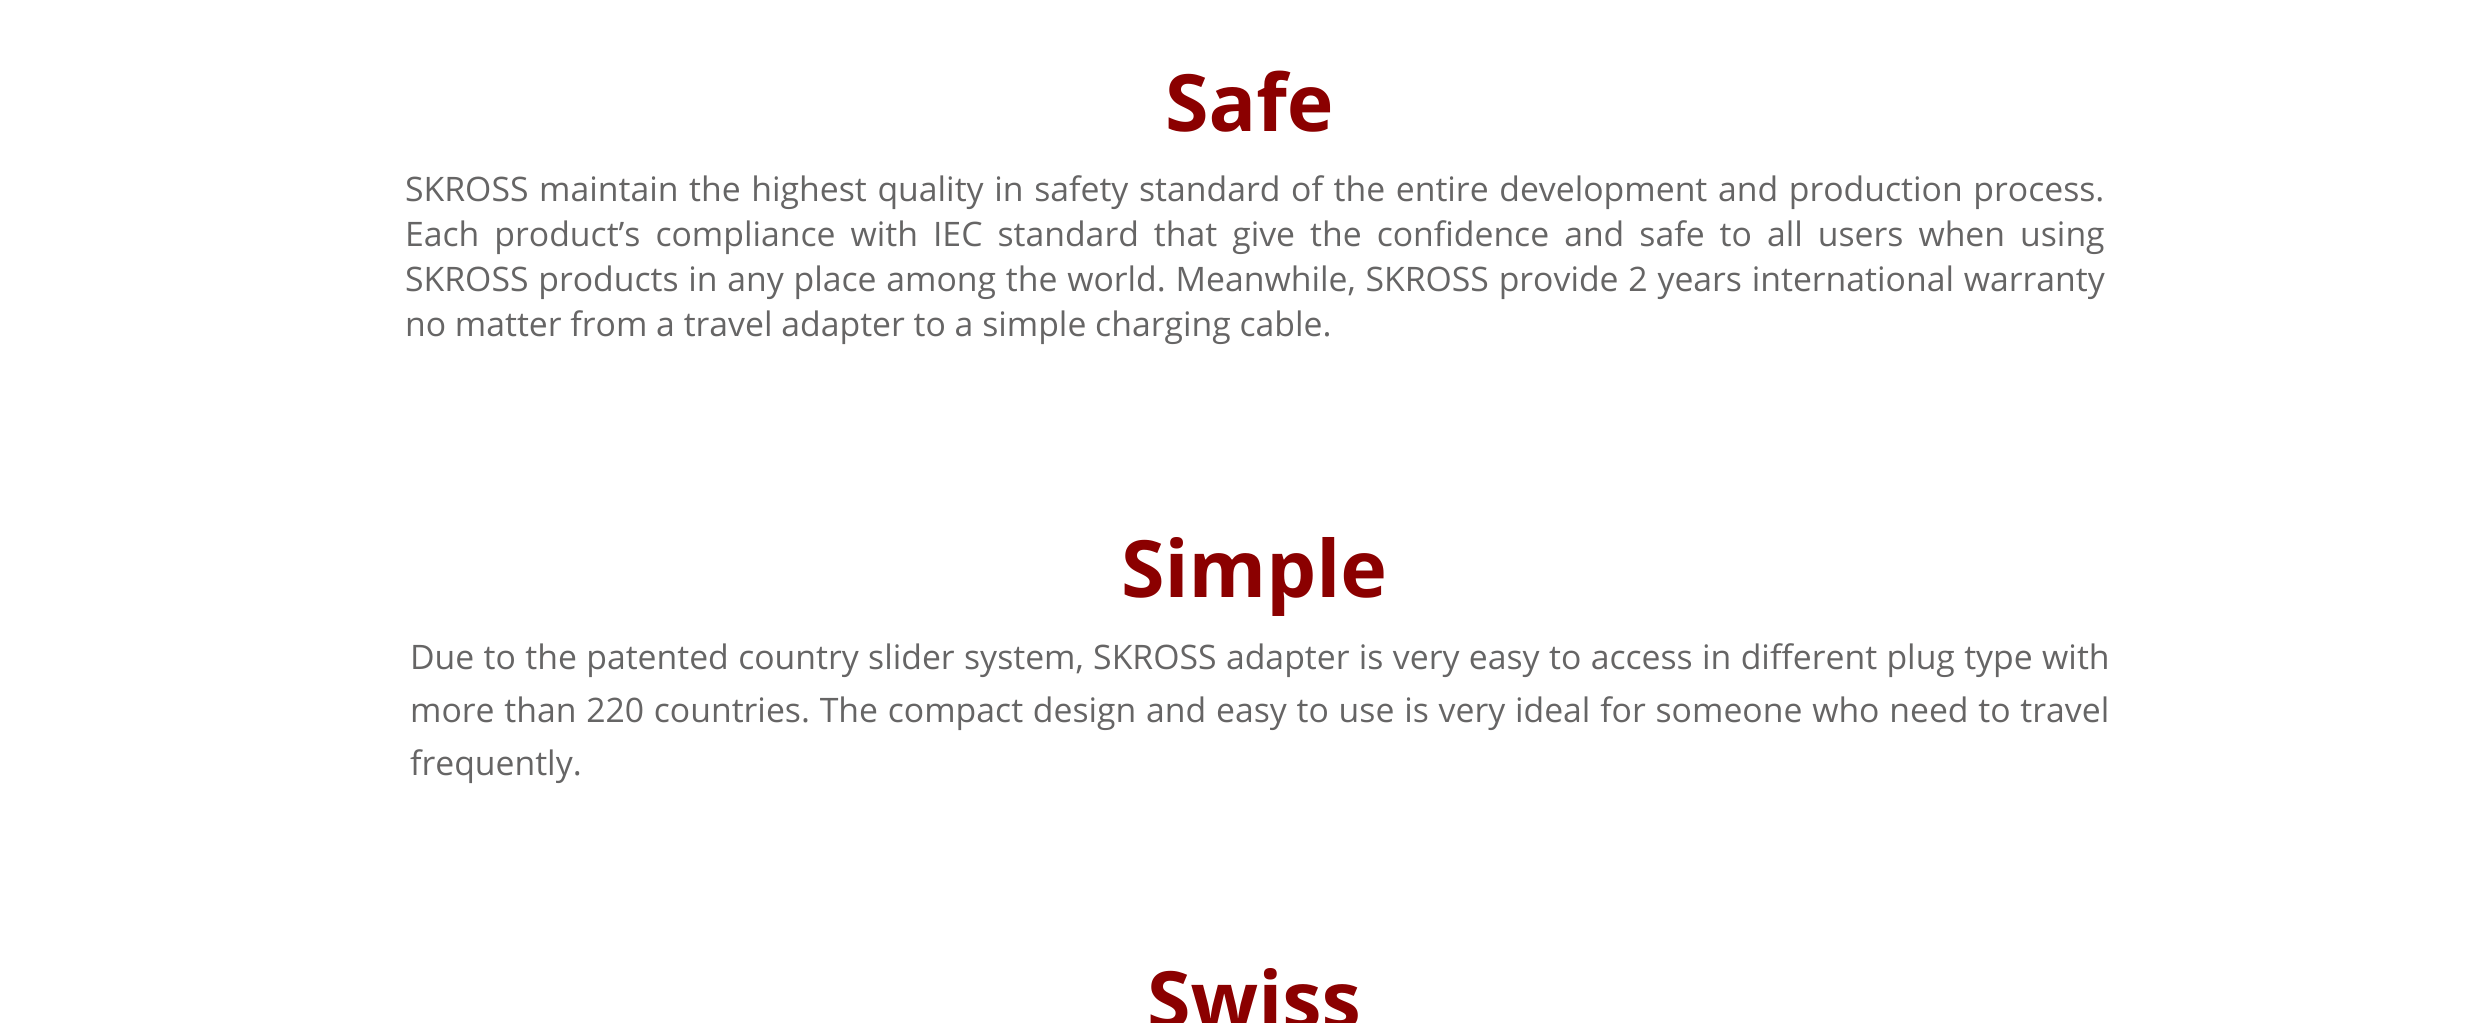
import math
import cairo

surface = cairo.ImageSurface(cairo.FORMAT_RGB24, 2473, 1023)
ctx = cairo.Context(surface)
options = cairo.FontOptions()
options.set_hint_metrics(cairo.HINT_METRICS_OFF)
options.set_hint_style(cairo.HINT_STYLE_NONE)
ctx.set_font_options(options)
ctx.set_miter_limit(4)


def spaced_text(x, y, s, letter, word):
    ctx.move_to(x, y)
    for ch in s:
        ctx.show_text(ch)
        ctx.rel_move_to(letter + word * (ch == ' '), 0)


ctx.set_source_rgb(1, 1, 1)
ctx.paint()
ctx.select_font_face("Open Sans", cairo.FONT_SLANT_NORMAL, cairo.FONT_WEIGHT_BOLD)
ctx.set_font_size(79)
ctx.set_source_rgb(0.545, 0, 0)
ctx.move_to(1165, 131)
ctx.show_text("Safe")
ctx.select_font_face("Open Sans")
ctx.set_font_size(33.75)
ctx.set_source_rgb(0.4, 0.396, 0.396)
spaced_text(405, 201, "SKROSS maintain the highest quality in safety standard of the entire development and production process.", 0, 1.9)
spaced_text(405, 246, "Each product’s compliance with IEC standard that give the confidence and safe to all users when using", 0, 6.25)
spaced_text(405, 291, "SKROSS products in any place among the world. Meanwhile, SKROSS provide 2 years international warranty", 0, 1)
ctx.move_to(405, 336)
ctx.show_text("no matter from a travel adapter to a simple charging cable.")
ctx.select_font_face("Open Sans", cairo.FONT_SLANT_NORMAL, cairo.FONT_WEIGHT_BOLD)
ctx.set_font_size(79)
ctx.set_source_rgb(0.545, 0, 0)
ctx.move_to(1121, 597)
ctx.show_text("Simple")
ctx.select_font_face("Open Sans")
ctx.set_font_size(33.75)
ctx.set_source_rgb(0.4, 0.396, 0.396)
spaced_text(410, 669, "Due to the patented country slider system, SKROSS adapter is very easy to access in different plug type with", 0, 0.6)
spaced_text(410, 722, "more than 220 countries. The compact design and easy to use is very ideal for someone who need to travel", 0, 1)
ctx.move_to(410, 775)
ctx.show_text("frequently.")
ctx.select_font_face("Open Sans", cairo.FONT_SLANT_NORMAL, cairo.FONT_WEIGHT_BOLD)
ctx.set_font_size(79)
ctx.set_source_rgb(0.545, 0, 0)
ctx.move_to(1147, 1028)
ctx.show_text("Swiss")
surface.write_to_png("page.png")
